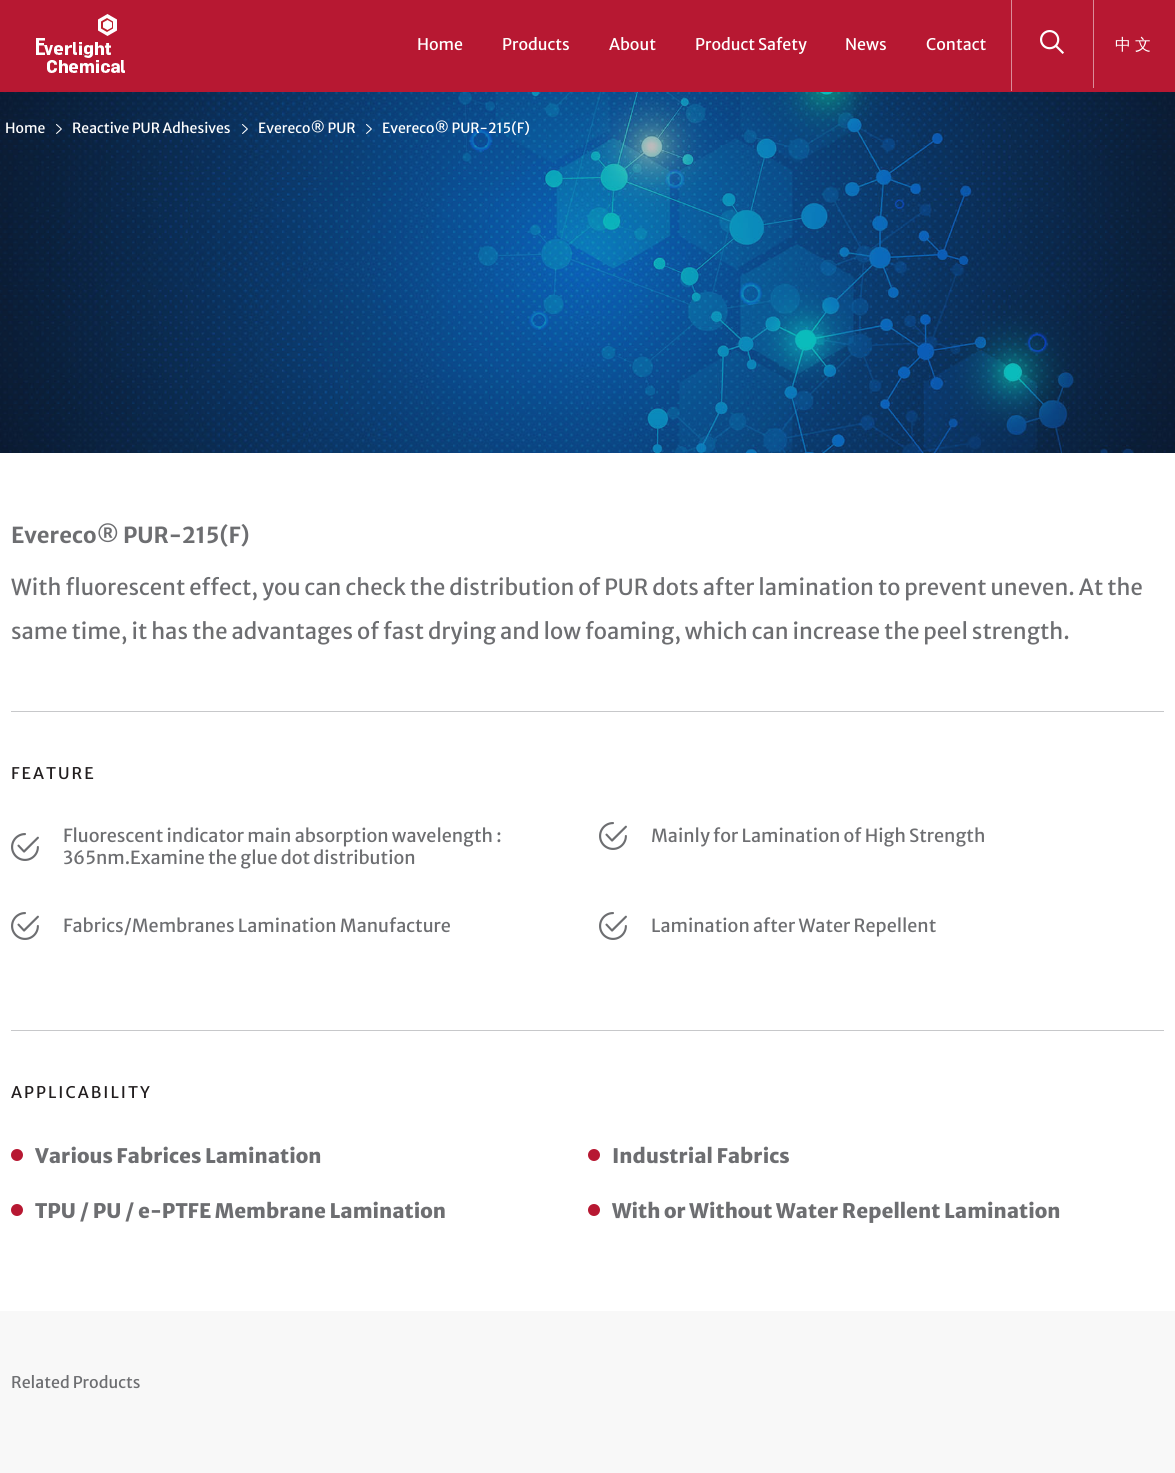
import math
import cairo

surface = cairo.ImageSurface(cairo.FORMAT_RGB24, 1175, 1473)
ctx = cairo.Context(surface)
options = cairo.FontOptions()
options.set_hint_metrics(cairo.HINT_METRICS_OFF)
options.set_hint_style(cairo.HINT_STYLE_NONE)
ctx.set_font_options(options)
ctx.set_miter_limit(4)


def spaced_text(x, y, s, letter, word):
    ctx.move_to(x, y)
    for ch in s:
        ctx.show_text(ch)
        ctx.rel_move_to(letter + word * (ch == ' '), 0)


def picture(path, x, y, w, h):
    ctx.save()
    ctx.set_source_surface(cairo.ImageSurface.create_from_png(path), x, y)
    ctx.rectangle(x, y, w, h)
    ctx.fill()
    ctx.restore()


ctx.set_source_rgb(1, 1, 1)
ctx.paint()
ctx.set_source_rgb(0.718, 0.094, 0.196)
ctx.rectangle(0, 0, 1175, 92)
ctx.fill()
picture("img1.png", 36, 14, 89, 59)
ctx.set_source_rgb(0.859, 0.549, 0.6)
ctx.rectangle(1011, 0, 1, 91)
ctx.fill()
picture("img2.png", 1040, 30, 24, 24)
ctx.select_font_face("Merriweather Sans")
ctx.set_font_size(16)
ctx.set_source_rgb(1, 1, 1)
ctx.move_to(417, 50)
ctx.show_text("Home")
ctx.move_to(502, 50)
ctx.show_text("Products")
ctx.move_to(609, 50)
ctx.show_text("About")
ctx.move_to(695, 50)
ctx.show_text("Product Safety")
ctx.move_to(845, 50)
ctx.show_text("News")
ctx.move_to(926, 50)
ctx.show_text("Contact")
ctx.set_source_rgb(0.859, 0.549, 0.6)
ctx.rectangle(1093, 0, 1, 88)
ctx.fill()
ctx.select_font_face("WenQuanYi Zen Hei Medium")
ctx.set_source_rgb(1, 1, 1)
spaced_text(1115, 50, "中文", 4, 0)
picture("img3.png", 0, 92, 1175, 361)
ctx.select_font_face("Merriweather Sans")
ctx.set_font_size(14)
ctx.move_to(5, 133)
ctx.show_text("Home")
picture("img4.png", 56, 124, 6, 10)
ctx.move_to(72, 133)
ctx.show_text("Reactive PUR Adhesives")
picture("img5.png", 242, 124, 6, 10)
ctx.move_to(258, 133)
ctx.show_text("Evereco® PUR")
picture("img6.png", 366, 124, 6, 10)
ctx.move_to(382, 133)
ctx.show_text("Evereco® PUR-215(F)")
ctx.set_source_rgb(0.78, 0.784, 0.792)
ctx.rectangle(11, 711, 1153, 1)
ctx.fill()
ctx.select_font_face("Merriweather Sans", cairo.FONT_SLANT_NORMAL, cairo.FONT_WEIGHT_BOLD)
ctx.set_font_size(22)
ctx.set_source_rgb(0.427, 0.431, 0.443)
ctx.move_to(11, 543)
ctx.show_text("Evereco® PUR-215(F)")
ctx.select_font_face("Merriweather Sans")
ctx.move_to(11, 595)
ctx.show_text("With fluorescent effect, you can check the distribution of PUR dots after lamination to prevent uneven. At the")
ctx.move_to(11, 639)
ctx.show_text("same time, it has the advantages of fast drying and low foaming, which can increase the peel strength.")
ctx.set_source_rgb(0.78, 0.784, 0.792)
ctx.rectangle(11, 1030, 1153, 1)
ctx.fill()
ctx.set_font_size(16)
ctx.set_source_rgb(0.133, 0.118, 0.122)
spaced_text(11, 779, "FEATURE", 2, 0)
picture("img7.png", 11, 833, 28, 28)
ctx.set_font_size(18)
ctx.set_source_rgb(0.427, 0.431, 0.443)
ctx.move_to(63, 842)
ctx.show_text("Fluorescent indicator main absorption wavelength :")
ctx.move_to(63, 864)
ctx.show_text("365nm.Examine the glue dot distribution")
picture("img7.png", 599, 822, 28, 28)
ctx.move_to(651, 842)
ctx.show_text("Mainly for Lamination of High Strength")
picture("img7.png", 11, 912, 28, 28)
ctx.move_to(63, 932)
ctx.show_text("Fabrics/Membranes Lamination Manufacture")
picture("img7.png", 599, 912, 28, 28)
ctx.move_to(651, 932)
ctx.show_text("Lamination after Water Repellent")
ctx.set_font_size(16)
ctx.set_source_rgb(0.133, 0.118, 0.122)
spaced_text(11, 1098, "APPLICABILITY", 2, 0)
ctx.set_source_rgb(0.718, 0.094, 0.196)
ctx.new_path()
ctx.arc(17, 1155, 6, 0, 2 * math.pi)
ctx.fill()
ctx.select_font_face("Merriweather Sans ExtraBold")
ctx.set_font_size(20)
ctx.set_source_rgb(0.427, 0.431, 0.443)
ctx.move_to(35, 1163)
ctx.show_text("Various Fabrices Lamination")
ctx.set_source_rgb(0.718, 0.094, 0.196)
ctx.new_path()
ctx.arc(594, 1155, 6, 0, 2 * math.pi)
ctx.fill()
ctx.set_source_rgb(0.427, 0.431, 0.443)
ctx.move_to(612, 1163)
ctx.show_text("Industrial Fabrics")
ctx.set_source_rgb(0.718, 0.094, 0.196)
ctx.new_path()
ctx.arc(17, 1210, 6, 0, 2 * math.pi)
ctx.fill()
ctx.set_source_rgb(0.427, 0.431, 0.443)
ctx.move_to(35, 1218)
ctx.show_text("TPU / PU / e-PTFE Membrane Lamination")
ctx.set_source_rgb(0.718, 0.094, 0.196)
ctx.new_path()
ctx.arc(594, 1210, 6, 0, 2 * math.pi)
ctx.fill()
ctx.set_source_rgb(0.427, 0.431, 0.443)
ctx.move_to(612, 1218)
ctx.show_text("With or Without Water Repellent Lamination")
ctx.set_source_rgb(0.969, 0.969, 0.969)
ctx.rectangle(0, 1311, 1175, 162)
ctx.fill()
ctx.select_font_face("Merriweather Sans")
ctx.set_font_size(16)
ctx.set_source_rgb(0.427, 0.431, 0.443)
ctx.move_to(11, 1388)
ctx.show_text("Related Products")
surface.write_to_png("page.png")
